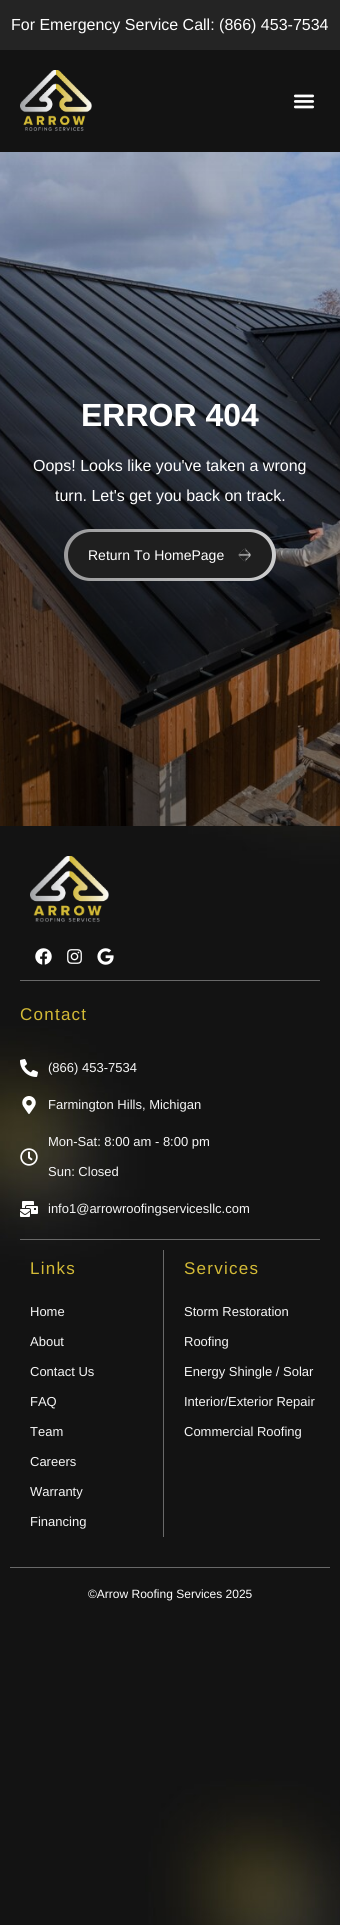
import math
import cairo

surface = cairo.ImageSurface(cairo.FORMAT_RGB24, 340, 1925)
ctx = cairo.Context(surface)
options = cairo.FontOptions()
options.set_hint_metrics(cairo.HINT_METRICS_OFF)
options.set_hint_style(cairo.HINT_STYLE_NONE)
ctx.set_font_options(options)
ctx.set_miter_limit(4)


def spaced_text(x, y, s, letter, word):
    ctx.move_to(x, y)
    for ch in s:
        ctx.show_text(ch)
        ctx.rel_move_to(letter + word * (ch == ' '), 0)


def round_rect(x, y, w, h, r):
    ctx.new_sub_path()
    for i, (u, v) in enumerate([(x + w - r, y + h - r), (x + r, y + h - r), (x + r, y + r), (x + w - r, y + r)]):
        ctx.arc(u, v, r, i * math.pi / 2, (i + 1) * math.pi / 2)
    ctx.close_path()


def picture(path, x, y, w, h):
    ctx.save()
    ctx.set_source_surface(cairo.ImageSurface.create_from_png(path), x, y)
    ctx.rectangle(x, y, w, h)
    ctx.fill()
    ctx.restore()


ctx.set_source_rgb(0.075, 0.075, 0.075)
ctx.paint()
picture("img1.png", 0, 826, 340, 1099)
ctx.set_source_rgb(0.141, 0.141, 0.141)
ctx.rectangle(0, 0, 340, 50)
ctx.fill()
ctx.select_font_face("Liberation Sans")
ctx.set_font_size(16)
ctx.set_source_rgb(1, 1, 1)
ctx.move_to(11, 30)
ctx.show_text("For Emergency Service Call: (866) 453-7534")
picture("img2.png", 20, 70, 72, 61)
picture("img3.png", 293, 94, 22, 15)
picture("img4.png", 0, 152, 340, 674)
ctx.select_font_face("Liberation Sans", cairo.FONT_SLANT_NORMAL, cairo.FONT_WEIGHT_BOLD)
ctx.set_font_size(32)
ctx.move_to(81, 426)
ctx.show_text("ERROR 404")
ctx.select_font_face("Liberation Sans")
ctx.set_font_size(16)
ctx.move_to(33, 471)
ctx.show_text("Oops! Looks like you've taken a wrong")
ctx.move_to(55, 501)
ctx.show_text("turn. Let's get you back on track.")
gradient = cairo.LinearGradient(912, 633, 64, 633)
gradient.add_color_stop_rgba(0, 0.827, 0.729, 0.212, 1)
gradient.add_color_stop_rgba(0.5, 1, 1, 1, 1)
gradient.add_color_stop_rgba(1, 0.604, 0.604, 0.608, 1)
ctx.set_source(gradient)
round_rect(64, 529, 212, 52, 26)
ctx.fill()
ctx.set_source_rgb(0.122, 0.122, 0.122)
round_rect(68, 532, 204, 46, 23)
ctx.fill()
ctx.set_font_size(14)
ctx.set_source_rgb(1, 1, 1)
ctx.move_to(88, 560)
ctx.show_text("Return To HomePage")
picture("img5.png", 238, 548, 13, 14)
ctx.set_source_rgb(0.412, 0.412, 0.412)
ctx.rectangle(20, 980, 300, 1)
ctx.fill()
picture("img6.png", 30, 856, 79, 66)
picture("img7.png", 35, 948, 17, 17)
picture("img8.png", 67, 949, 15, 15)
picture("img9.png", 97, 948, 17, 17)
ctx.rectangle(20, 1239, 300, 1)
ctx.fill()
ctx.set_font_size(17)
ctx.set_source_rgb(0.827, 0.729, 0.212)
spaced_text(20, 1020, "Contact", 1.25, 0)
picture("img10.png", 20, 1059, 18, 18)
ctx.set_font_size(13)
ctx.set_source_rgb(0.961, 0.961, 0.961)
ctx.move_to(48, 1072)
ctx.show_text("(866) 453-7534")
picture("img11.png", 22, 1096, 14, 18)
ctx.move_to(48, 1109)
ctx.show_text("Farmington Hills, Michigan")
picture("img12.png", 20, 1148, 18, 18)
ctx.move_to(48, 1146)
ctx.show_text("Mon-Sat: 8:00 am - 8:00 pm")
ctx.move_to(48, 1176)
ctx.show_text("Sun: Closed")
picture("img13.png", 20, 1201, 18, 16)
ctx.move_to(48, 1213)
ctx.show_text("info1@arrowroofingservicesllc.com")
ctx.set_source_rgb(0.412, 0.412, 0.412)
ctx.rectangle(163, 1250, 1, 287)
ctx.fill()
ctx.set_font_size(17)
ctx.set_source_rgb(0.827, 0.729, 0.212)
spaced_text(30, 1274, "Links", 1.25, 0)
ctx.set_font_size(13)
ctx.set_source_rgb(0.961, 0.961, 0.961)
ctx.move_to(30, 1316)
ctx.show_text("Home")
ctx.move_to(30, 1346)
ctx.show_text("About")
ctx.move_to(30, 1376)
ctx.show_text("Contact Us")
ctx.move_to(30, 1406)
ctx.show_text("FAQ")
ctx.move_to(30, 1436)
ctx.show_text("Team")
ctx.move_to(30, 1466)
ctx.show_text("Careers")
ctx.move_to(30, 1496)
ctx.show_text("Warranty")
ctx.move_to(30, 1526)
ctx.show_text("Financing")
ctx.set_font_size(17)
ctx.set_source_rgb(0.827, 0.729, 0.212)
spaced_text(184, 1274, "Services", 1.25, 0)
ctx.set_font_size(13)
ctx.set_source_rgb(0.961, 0.961, 0.961)
ctx.move_to(184, 1316)
ctx.show_text("Storm Restoration")
ctx.move_to(184, 1346)
ctx.show_text("Roofing")
ctx.move_to(184, 1376)
ctx.show_text("Energy Shingle / Solar")
ctx.move_to(184, 1406)
ctx.show_text("Interior/Exterior Repair")
ctx.move_to(184, 1436)
ctx.show_text("Commercial Roofing")
ctx.set_source_rgb(0.412, 0.412, 0.412)
ctx.rectangle(10, 1567, 320, 1)
ctx.fill()
ctx.set_font_size(12)
ctx.set_source_rgb(1, 1, 1)
ctx.move_to(88, 1598)
ctx.show_text("©Arrow Roofing Services 2025")
surface.write_to_png("page.png")
